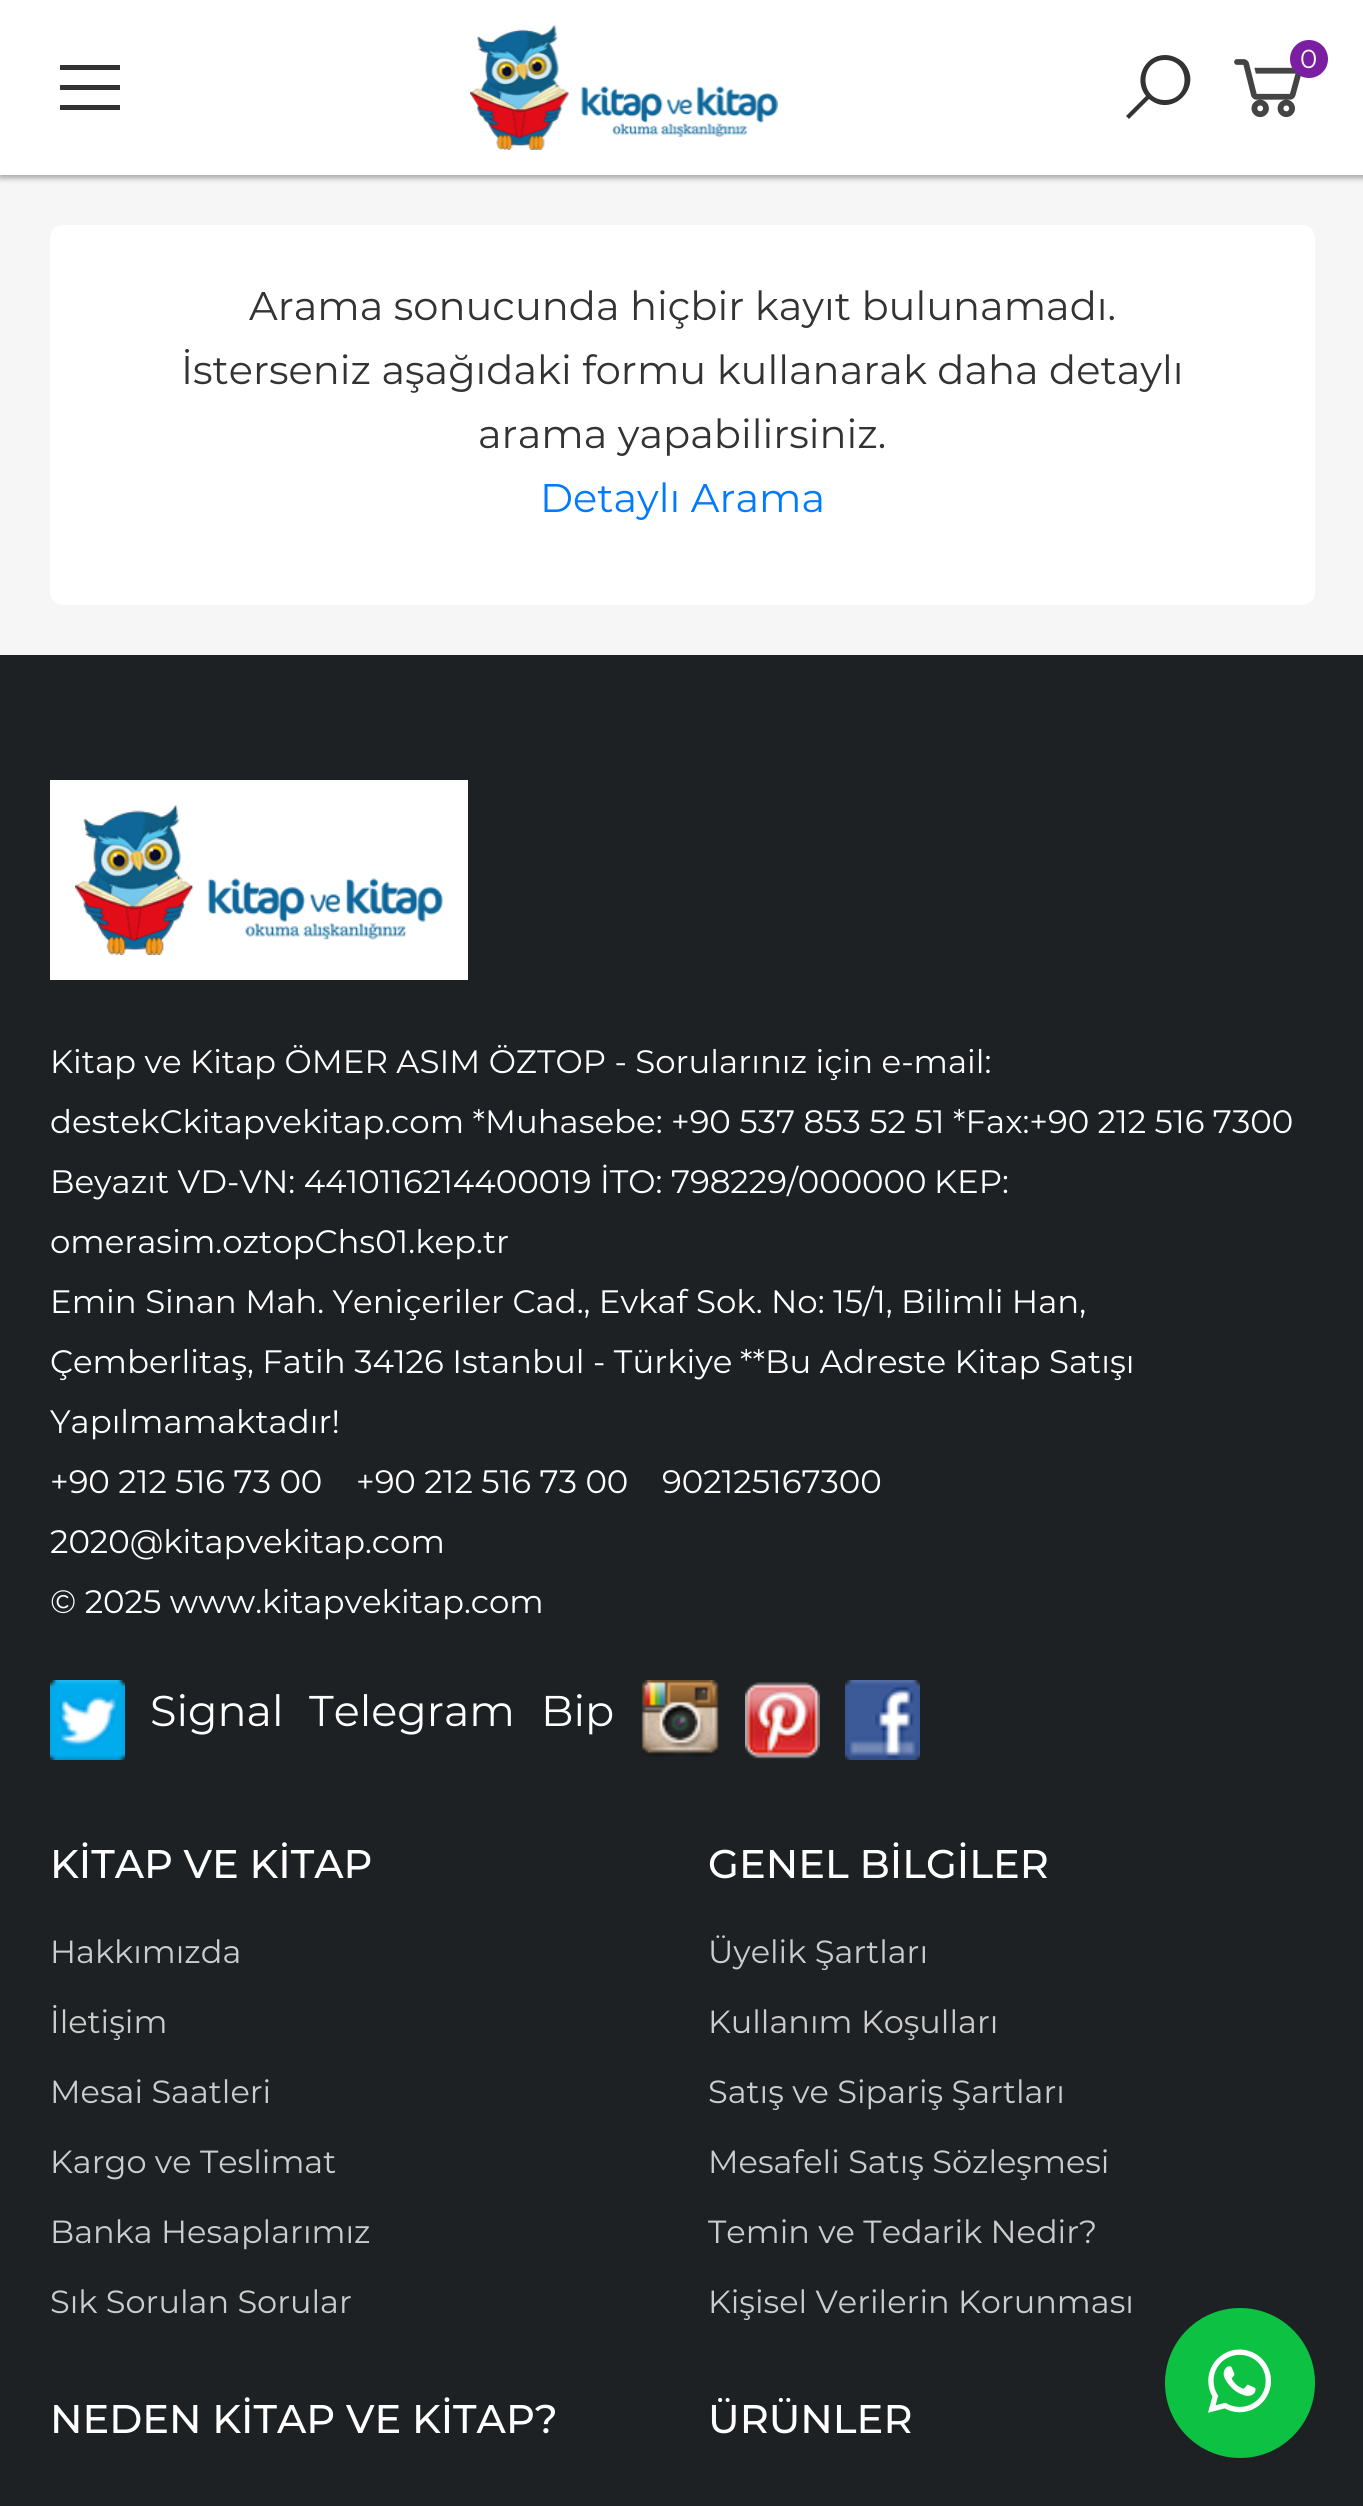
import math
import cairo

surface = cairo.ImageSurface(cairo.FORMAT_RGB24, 1363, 2506)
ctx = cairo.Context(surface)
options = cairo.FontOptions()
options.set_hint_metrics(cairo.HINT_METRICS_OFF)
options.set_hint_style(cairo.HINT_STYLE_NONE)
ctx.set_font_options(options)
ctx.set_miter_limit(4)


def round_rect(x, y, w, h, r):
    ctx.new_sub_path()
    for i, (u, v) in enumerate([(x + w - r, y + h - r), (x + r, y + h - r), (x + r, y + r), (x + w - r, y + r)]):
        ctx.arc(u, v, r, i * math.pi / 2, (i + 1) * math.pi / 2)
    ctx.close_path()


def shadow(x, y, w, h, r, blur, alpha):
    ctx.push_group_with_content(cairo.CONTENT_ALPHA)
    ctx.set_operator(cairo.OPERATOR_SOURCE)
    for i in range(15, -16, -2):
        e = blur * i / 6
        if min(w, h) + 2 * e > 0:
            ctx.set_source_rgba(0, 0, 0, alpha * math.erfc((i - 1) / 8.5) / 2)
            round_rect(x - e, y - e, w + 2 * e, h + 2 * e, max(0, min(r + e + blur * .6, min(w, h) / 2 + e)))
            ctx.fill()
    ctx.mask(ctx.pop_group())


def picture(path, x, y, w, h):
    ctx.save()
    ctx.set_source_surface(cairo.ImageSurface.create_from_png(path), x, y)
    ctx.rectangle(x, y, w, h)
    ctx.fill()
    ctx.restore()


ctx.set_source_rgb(0.961, 0.961, 0.961)
ctx.paint()
ctx.set_source_rgb(0, 0, 0)
shadow(0, 3, 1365, 175, 0, 2.5, 0.24)
shadow(0, 3, 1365, 175, 0, 4, 0.12)
ctx.set_source_rgb(1, 1, 1)
ctx.rectangle(0, 0, 1363, 175)
ctx.fill()
ctx.set_source_rgb(0.2, 0.2, 0.2)
ctx.new_path()
ctx.move_to(60, 65)
ctx.line_to(60, 70)
ctx.line_to(120, 70)
ctx.line_to(120, 65)
ctx.close_path()
ctx.move_to(60, 85)
ctx.line_to(60, 90)
ctx.line_to(120, 90)
ctx.line_to(120, 85)
ctx.close_path()
ctx.move_to(60, 105)
ctx.line_to(60, 110)
ctx.line_to(120, 110)
ctx.line_to(120, 105)
ctx.close_path()
ctx.fill()
picture("img1.png", 470, 25, 308, 125)
ctx.new_path()
ctx.move_to(1165, 55)
ctx.curve_to(1144, 55, 1133, 80, 1146, 96)
ctx.line_to(1126, 116)
ctx.line_to(1129, 119)
ctx.line_to(1149, 99)
ctx.curve_to(1173, 119, 1205, 85, 1183, 62)
ctx.curve_to(1178, 58, 1172, 55, 1165, 55)
ctx.close_path()
ctx.move_to(1165, 60)
ctx.curve_to(1191, 60, 1191, 100, 1165, 100)
ctx.curve_to(1139, 100, 1139, 60, 1165, 60)
ctx.close_path()
ctx.fill()
picture("img2.png", 1234, 59, 67, 59)
ctx.set_source_rgb(0.482, 0.122, 0.635)
ctx.arc(1309, 59, 19, 0, 2 * math.pi)
ctx.fill()
ctx.select_font_face("Montserrat")
ctx.set_font_size(26)
ctx.set_source_rgb(1, 1, 1)
ctx.move_to(1300, 68)
ctx.show_text("0")
round_rect(50, 225, 1265, 380, 13)
ctx.fill()
ctx.set_font_size(40)
ctx.set_source_rgb(0.2, 0.2, 0.2)
ctx.move_to(249, 320)
ctx.show_text("Arama sonucunda hiçbir kayıt bulunamadı.")
ctx.move_to(181, 384)
ctx.show_text("İsterseniz aşağıdaki formu kullanarak daha detaylı")
ctx.move_to(478, 448)
ctx.show_text("arama yapabilirsiniz.")
ctx.set_source_rgb(0, 0.482, 1)
ctx.move_to(540, 512)
ctx.show_text("Detaylı Arama")
ctx.set_source_rgb(0.114, 0.129, 0.141)
ctx.rectangle(0, 655, 1363, 1851)
ctx.fill()
ctx.set_source_rgb(1, 1, 1)
ctx.rectangle(50, 780, 418, 200)
ctx.fill()
picture("img3.png", 75, 805, 368, 150)
ctx.set_font_size(32.4)
ctx.move_to(50, 1073)
ctx.show_text("Kitap ve Kitap ÖMER ASIM ÖZTOP - Sorularınız için e-mail:")
ctx.move_to(50, 1133)
ctx.show_text("destekCkitapvekitap.com *Muhasebe: +90 537 853 52 51 *Fax:+90 212 516 7300")
ctx.move_to(50, 1193)
ctx.show_text("Beyazıt VD-VN: 4410116214400019 İTO: 798229/000000")
ctx.move_to(934, 1193)
ctx.show_text("KEP:")
ctx.move_to(50, 1253)
ctx.show_text("omerasim.oztopChs01.kep.tr")
ctx.move_to(50, 1313)
ctx.show_text("Emin Sinan Mah. Yeniçeriler Cad., Evkaf Sok. No: 15/1, Bilimli Han,")
ctx.move_to(50, 1373)
ctx.show_text("Çemberlitaş, Fatih 34126 Istanbul - Türkiye")
ctx.move_to(740, 1373)
ctx.show_text("**Bu Adreste Kitap Satışı")
ctx.move_to(50, 1433)
ctx.show_text("Yapılmamaktadır!")
ctx.move_to(50, 1493)
ctx.show_text("+90 212 516 73 00")
ctx.move_to(356, 1493)
ctx.show_text("+90 212 516 73 00")
ctx.move_to(662, 1493)
ctx.show_text("902125167300")
ctx.move_to(50, 1553)
ctx.show_text("2020@kitapvekitap.com")
ctx.move_to(50, 1613)
ctx.show_text("© 2025 www.kitapvekitap.com")
picture("img4.png", 50, 1680, 75, 80)
ctx.set_font_size(43)
ctx.move_to(150, 1726)
ctx.show_text("Signal")
ctx.move_to(309, 1726)
ctx.show_text("Telegram")
ctx.move_to(541, 1726)
ctx.show_text("Bip")
picture("img5.png", 641, 1680, 78, 77)
picture("img6.png", 745, 1682, 75, 77)
picture("img7.png", 845, 1680, 75, 80)
ctx.select_font_face("Montserrat Medium")
ctx.set_font_size(40)
ctx.move_to(50, 1878)
ctx.show_text("KİTAP VE KİTAP")
ctx.select_font_face("Montserrat")
ctx.set_font_size(32)
ctx.set_source_rgb(0.8, 0.8, 0.8)
ctx.move_to(50, 1963)
ctx.show_text("Hakkımızda")
ctx.move_to(50, 2033)
ctx.show_text("İletişim")
ctx.move_to(50, 2103)
ctx.show_text("Mesai Saatleri")
ctx.move_to(50, 2173)
ctx.show_text("Kargo ve Teslimat")
ctx.move_to(50, 2243)
ctx.show_text("Banka Hesaplarımız")
ctx.move_to(50, 2313)
ctx.show_text("Sık Sorulan Sorular")
ctx.select_font_face("Montserrat Medium")
ctx.set_font_size(40)
ctx.set_source_rgb(1, 1, 1)
ctx.move_to(708, 1878)
ctx.show_text("GENEL BİLGİLER")
ctx.select_font_face("Montserrat")
ctx.set_font_size(32)
ctx.set_source_rgb(0.8, 0.8, 0.8)
ctx.move_to(708, 1963)
ctx.show_text("Üyelik Şartları")
ctx.move_to(708, 2033)
ctx.show_text("Kullanım Koşulları")
ctx.move_to(708, 2103)
ctx.show_text("Satış ve Sipariş Şartları")
ctx.move_to(708, 2173)
ctx.show_text("Mesafeli Satış Sözleşmesi")
ctx.move_to(708, 2243)
ctx.show_text("Temin ve Tedarik Nedir?")
ctx.move_to(708, 2313)
ctx.show_text("Kişisel Verilerin Korunması")
ctx.select_font_face("Montserrat Medium")
ctx.set_font_size(40)
ctx.set_source_rgb(1, 1, 1)
ctx.move_to(50, 2433)
ctx.show_text("NEDEN KİTAP VE KİTAP?")
ctx.move_to(708, 2433)
ctx.show_text("ÜRÜNLER")
ctx.set_source_rgb(0.051, 0.757, 0.263)
ctx.new_path()
ctx.arc(1240, 2383, 75, 0, 2 * math.pi)
ctx.fill()
picture("img8.png", 1208, 2349, 63, 64)
surface.write_to_png("page.png")
